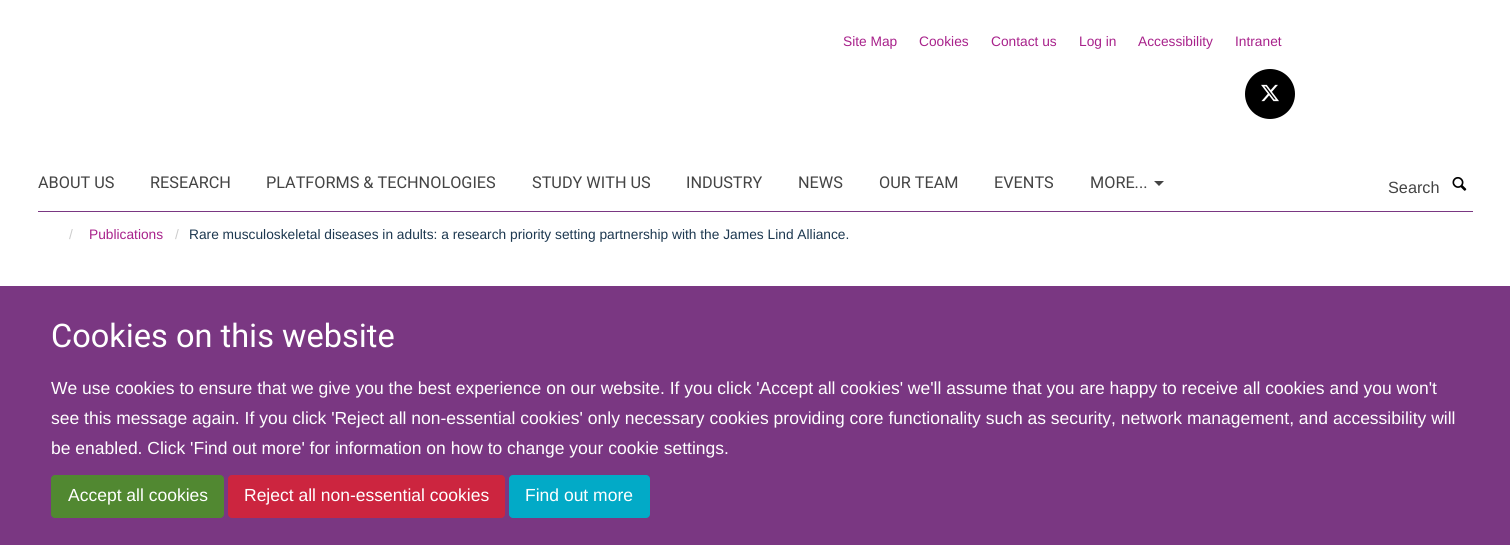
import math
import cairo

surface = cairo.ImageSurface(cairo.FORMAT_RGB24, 1510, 545)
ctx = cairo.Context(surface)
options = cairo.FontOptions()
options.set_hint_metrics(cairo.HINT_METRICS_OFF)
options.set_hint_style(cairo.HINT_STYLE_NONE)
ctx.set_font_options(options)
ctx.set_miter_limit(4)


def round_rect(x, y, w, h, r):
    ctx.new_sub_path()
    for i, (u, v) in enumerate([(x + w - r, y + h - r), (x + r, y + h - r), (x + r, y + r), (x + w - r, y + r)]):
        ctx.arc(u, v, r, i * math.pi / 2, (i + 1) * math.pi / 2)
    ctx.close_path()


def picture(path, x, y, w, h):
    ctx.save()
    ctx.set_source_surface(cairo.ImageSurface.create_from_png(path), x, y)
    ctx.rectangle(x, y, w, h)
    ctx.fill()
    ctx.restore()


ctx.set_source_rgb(1, 1, 1)
ctx.paint()
ctx.select_font_face("Liberation Sans")
ctx.set_font_size(13.75)
ctx.set_source_rgb(0.659, 0.133, 0.545)
ctx.move_to(843, 46)
ctx.show_text("Site Map")
ctx.move_to(919, 46)
ctx.show_text("Cookies")
ctx.move_to(991, 46)
ctx.show_text("Contact us")
ctx.move_to(1079, 46)
ctx.show_text("Log in")
ctx.move_to(1138, 46)
ctx.show_text("Accessibility")
ctx.move_to(1235, 46)
ctx.show_text("Intranet")
ctx.set_source_rgb(0, 0, 0)
ctx.new_path()
ctx.arc(1270, 94, 25, 0, 2 * math.pi)
ctx.fill()
picture("img1.png", 1261, 84, 18, 18)
ctx.set_source_rgb(0.478, 0.216, 0.51)
ctx.rectangle(38, 211, 1435, 1)
ctx.fill()
ctx.select_font_face("Heebo")
ctx.set_font_size(16.25)
ctx.set_source_rgb(0.267, 0.267, 0.267)
ctx.move_to(38, 188)
ctx.show_text("ABOUT US")
ctx.move_to(150, 188)
ctx.show_text("RESEARCH")
ctx.move_to(266, 188)
ctx.show_text("PLATFORMS & TECHNOLOGIES")
ctx.move_to(532, 188)
ctx.show_text("STUDY WITH US")
ctx.move_to(686, 188)
ctx.show_text("INDUSTRY")
ctx.move_to(798, 188)
ctx.show_text("NEWS")
ctx.move_to(879, 188)
ctx.show_text("OUR TEAM")
ctx.move_to(994, 188)
ctx.show_text("EVENTS")
ctx.move_to(1090, 188)
ctx.show_text("MORE...")
ctx.new_path()
ctx.move_to(1154, 181)
ctx.line_to(1164, 181)
ctx.line_to(1159, 186)
ctx.close_path()
ctx.fill()
ctx.select_font_face("Liberation Sans")
ctx.move_to(1388, 193)
ctx.show_text("Search")
picture("img2.png", 1452, 176, 15, 15)
ctx.set_font_size(13.75)
ctx.set_source_rgb(0.8, 0.8, 0.8)
ctx.move_to(69, 239)
ctx.show_text("/")
ctx.set_source_rgb(0.659, 0.133, 0.545)
ctx.move_to(89, 239)
ctx.show_text("Publications")
ctx.set_source_rgb(0.8, 0.8, 0.8)
ctx.move_to(175, 239)
ctx.show_text("/")
ctx.set_source_rgb(0.114, 0.22, 0.314)
ctx.move_to(189, 239)
ctx.show_text("Rare musculoskeletal diseases in adults: a research priority setting partnership with the James Lind Alliance.")
ctx.set_source_rgb(0.478, 0.216, 0.51)
ctx.rectangle(0, 286, 1510, 259)
ctx.fill()
ctx.select_font_face("Heebo")
ctx.set_font_size(32.5)
ctx.set_source_rgb(1, 1, 1)
ctx.move_to(51, 347)
ctx.show_text("Cookies on this website")
ctx.select_font_face("Liberation Sans")
ctx.set_font_size(17.5)
ctx.move_to(51, 394)
ctx.show_text("We use cookies to ensure that we give you the best experience on our website. If you click 'Accept all cookies' we'll assume that you are happy to receive all cookies and you won't")
ctx.move_to(51, 424)
ctx.show_text("see this message again. If you click 'Reject all non-essential cookies' only necessary cookies providing core functionality such as security, network management, and accessibility will")
ctx.move_to(51, 454)
ctx.show_text("be enabled. Click 'Find out more' for information on how to change your cookie settings.")
ctx.set_source_rgb(0.318, 0.533, 0.192)
round_rect(51.5, 475.5, 172, 42, 3.5)
ctx.fill_preserve()
ctx.set_line_width(1)
ctx.stroke()
ctx.set_source_rgb(1, 1, 1)
ctx.move_to(68, 501)
ctx.show_text("Accept all cookies")
ctx.set_source_rgb(0.8, 0.145, 0.247)
round_rect(228.5, 475.5, 276, 42, 3.5)
ctx.fill_preserve()
ctx.stroke()
ctx.set_source_rgb(1, 1, 1)
ctx.move_to(244, 501)
ctx.show_text("Reject all non-essential cookies")
ctx.set_source_rgb(0.008, 0.667, 0.78)
round_rect(509.5, 475.5, 140, 42, 3.5)
ctx.fill_preserve()
ctx.stroke()
ctx.set_source_rgb(1, 1, 1)
ctx.move_to(525, 501)
ctx.show_text("Find out more")
surface.write_to_png("page.png")
